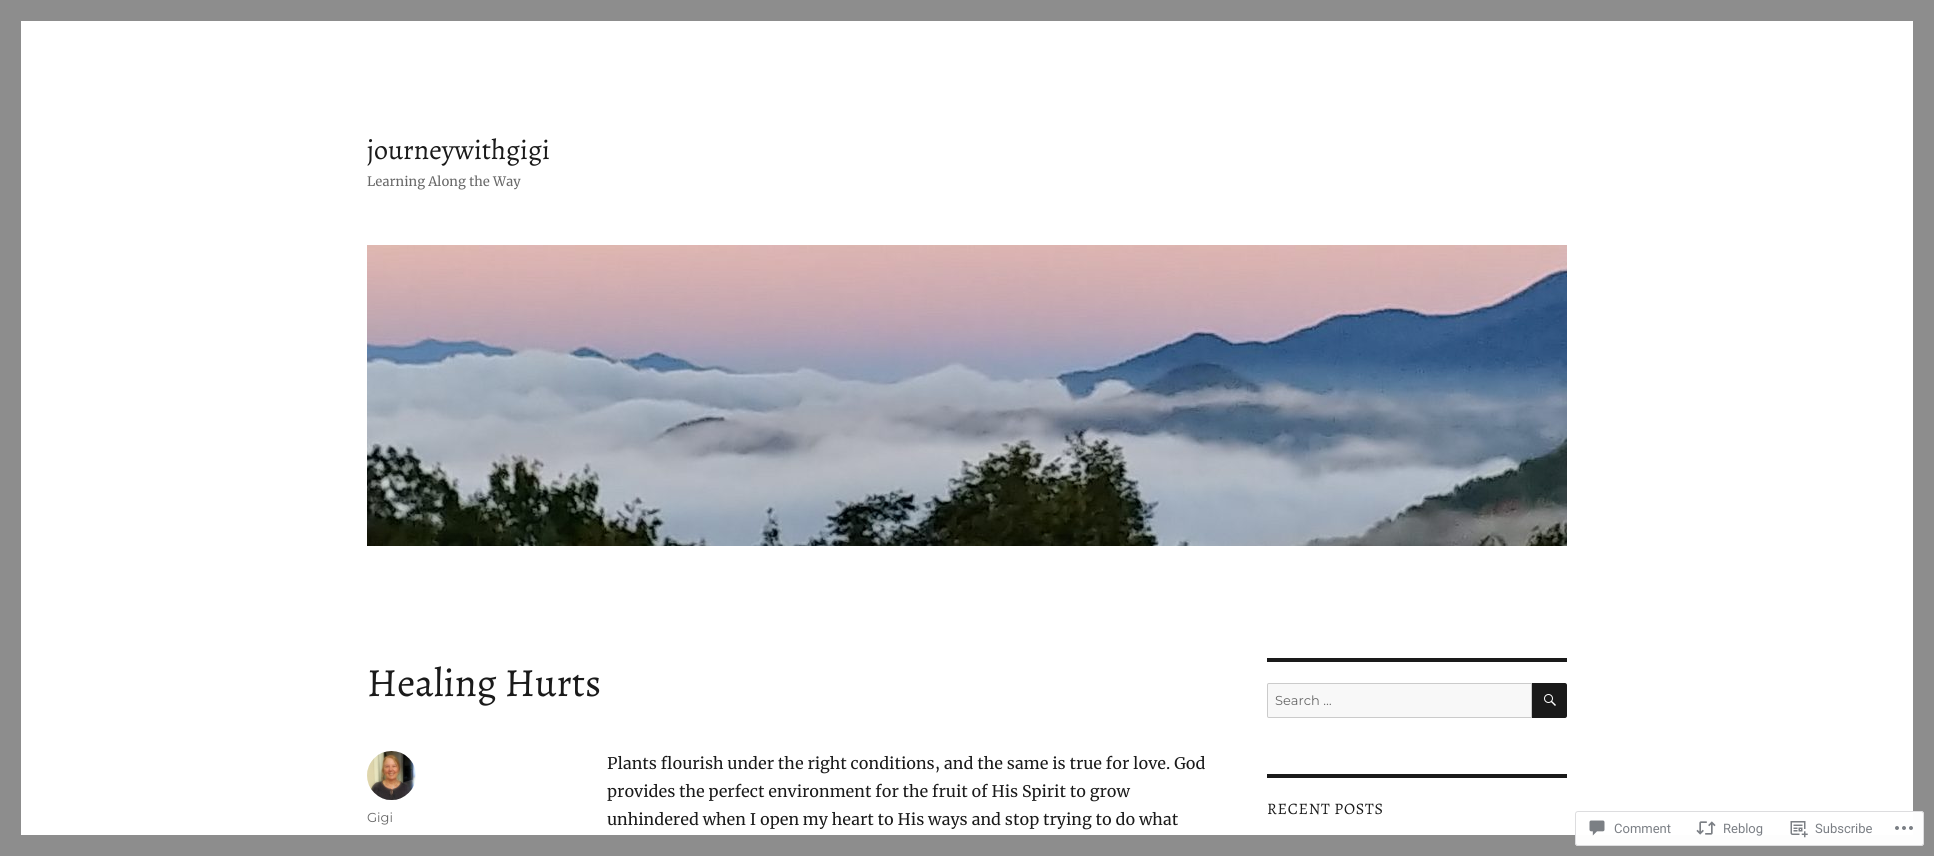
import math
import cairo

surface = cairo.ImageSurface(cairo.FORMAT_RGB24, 1934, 856)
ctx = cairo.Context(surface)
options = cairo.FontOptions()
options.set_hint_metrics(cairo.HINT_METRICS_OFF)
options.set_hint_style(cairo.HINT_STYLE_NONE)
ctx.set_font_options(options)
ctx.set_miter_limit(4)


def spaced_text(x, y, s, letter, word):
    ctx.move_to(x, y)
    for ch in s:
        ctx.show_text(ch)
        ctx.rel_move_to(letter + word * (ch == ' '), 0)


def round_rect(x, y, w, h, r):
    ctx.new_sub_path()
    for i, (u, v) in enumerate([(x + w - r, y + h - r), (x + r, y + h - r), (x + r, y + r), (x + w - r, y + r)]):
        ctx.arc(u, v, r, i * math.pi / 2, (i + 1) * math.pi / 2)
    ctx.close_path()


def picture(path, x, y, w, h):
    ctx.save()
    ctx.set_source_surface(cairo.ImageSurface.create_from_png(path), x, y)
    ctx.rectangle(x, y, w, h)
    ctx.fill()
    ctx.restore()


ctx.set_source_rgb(0.553, 0.553, 0.553)
ctx.paint()
ctx.set_source_rgb(1, 1, 1)
ctx.rectangle(21, 21, 1892, 814)
ctx.fill()
ctx.select_font_face("Alegreya")
ctx.set_font_size(28)
ctx.set_source_rgb(0.102, 0.102, 0.102)
ctx.move_to(367, 159)
ctx.show_text("journeywithgigi")
ctx.select_font_face("Merriweather")
ctx.set_font_size(13)
ctx.set_source_rgb(0.408, 0.408, 0.408)
ctx.move_to(367, 186)
ctx.show_text("Learning Along the Way")
picture("img1.png", 367, 245, 1200, 301)
ctx.select_font_face("Alegreya")
ctx.set_font_size(40)
ctx.set_source_rgb(0.102, 0.102, 0.102)
ctx.move_to(367, 696)
ctx.show_text("Healing Hurts")
picture("img2.png", 367, 751, 49, 49)
ctx.select_font_face("Montserrat Thin")
ctx.set_font_size(13)
ctx.set_source_rgb(0.408, 0.408, 0.408)
ctx.move_to(367, 822)
ctx.show_text("Gigi")
ctx.select_font_face("Merriweather")
ctx.set_font_size(16)
ctx.set_source_rgb(0.102, 0.102, 0.102)
ctx.move_to(607, 769)
ctx.show_text("Plants flourish under the right conditions, and the same is true for love. God")
ctx.move_to(607, 797)
ctx.show_text("provides the perfect environment for the fruit of His Spirit to grow")
ctx.move_to(607, 825)
ctx.show_text("unhindered when I open my heart to His ways and stop trying to do what")
ctx.rectangle(1267, 658, 300, 4)
ctx.fill()
ctx.set_source_rgb(0.969, 0.969, 0.969)
ctx.new_path()
ctx.move_to(1269, 683.5)
ctx.line_to(1531.5, 683.5)
ctx.line_to(1531.5, 717.5)
ctx.line_to(1269, 717.5)
ctx.curve_to(1268, 717.5, 1267.5, 717, 1267.5, 716)
ctx.line_to(1267.5, 685)
ctx.curve_to(1267.5, 684, 1268, 683.5, 1269, 683.5)
ctx.close_path()
ctx.fill_preserve()
ctx.set_source_rgb(0.796, 0.796, 0.796)
ctx.set_line_width(1)
ctx.stroke()
ctx.select_font_face("Montserrat Thin")
ctx.set_font_size(13)
ctx.set_source_rgb(0.408, 0.408, 0.408)
ctx.move_to(1275, 705)
ctx.show_text("Search …")
ctx.set_source_rgb(0.102, 0.102, 0.102)
ctx.new_path()
ctx.move_to(1532, 683)
ctx.line_to(1565, 683)
ctx.curve_to(1566, 683, 1567, 684, 1567, 685)
ctx.line_to(1567, 716)
ctx.curve_to(1567, 717, 1566, 718, 1565, 718)
ctx.line_to(1532, 718)
ctx.close_path()
ctx.fill()
picture("img3.png", 1544, 694, 12, 12)
ctx.rectangle(1267, 774, 300, 4)
ctx.fill()
ctx.select_font_face("Alegreya")
ctx.set_font_size(16)
spaced_text(1267, 814, "RECENT POSTS", 0.75, 0)
ctx.set_source_rgba(1, 1, 1, 0.98)
round_rect(1575, 811, 349, 35, 3)
ctx.fill()
round_rect(1575.5, 811.5, 348, 34, 2.5)
ctx.set_source_rgba(0.863, 0.863, 0.871, 0.98)
ctx.stroke()
picture("img4.png", 1589, 820, 16, 16)
ctx.select_font_face("Roboto")
ctx.set_font_size(13)
ctx.set_source_rgb(0.482, 0.498, 0.522)
ctx.move_to(1614, 833)
ctx.show_text("Comment")
picture("img5.png", 1696, 821, 20, 14)
ctx.move_to(1723, 833)
ctx.show_text("Reblog")
picture("img6.png", 1790, 821, 18, 17)
ctx.move_to(1815, 833)
ctx.show_text("Subscribe")
picture("img7.png", 1895, 826, 18, 4)
surface.write_to_png("page.png")
